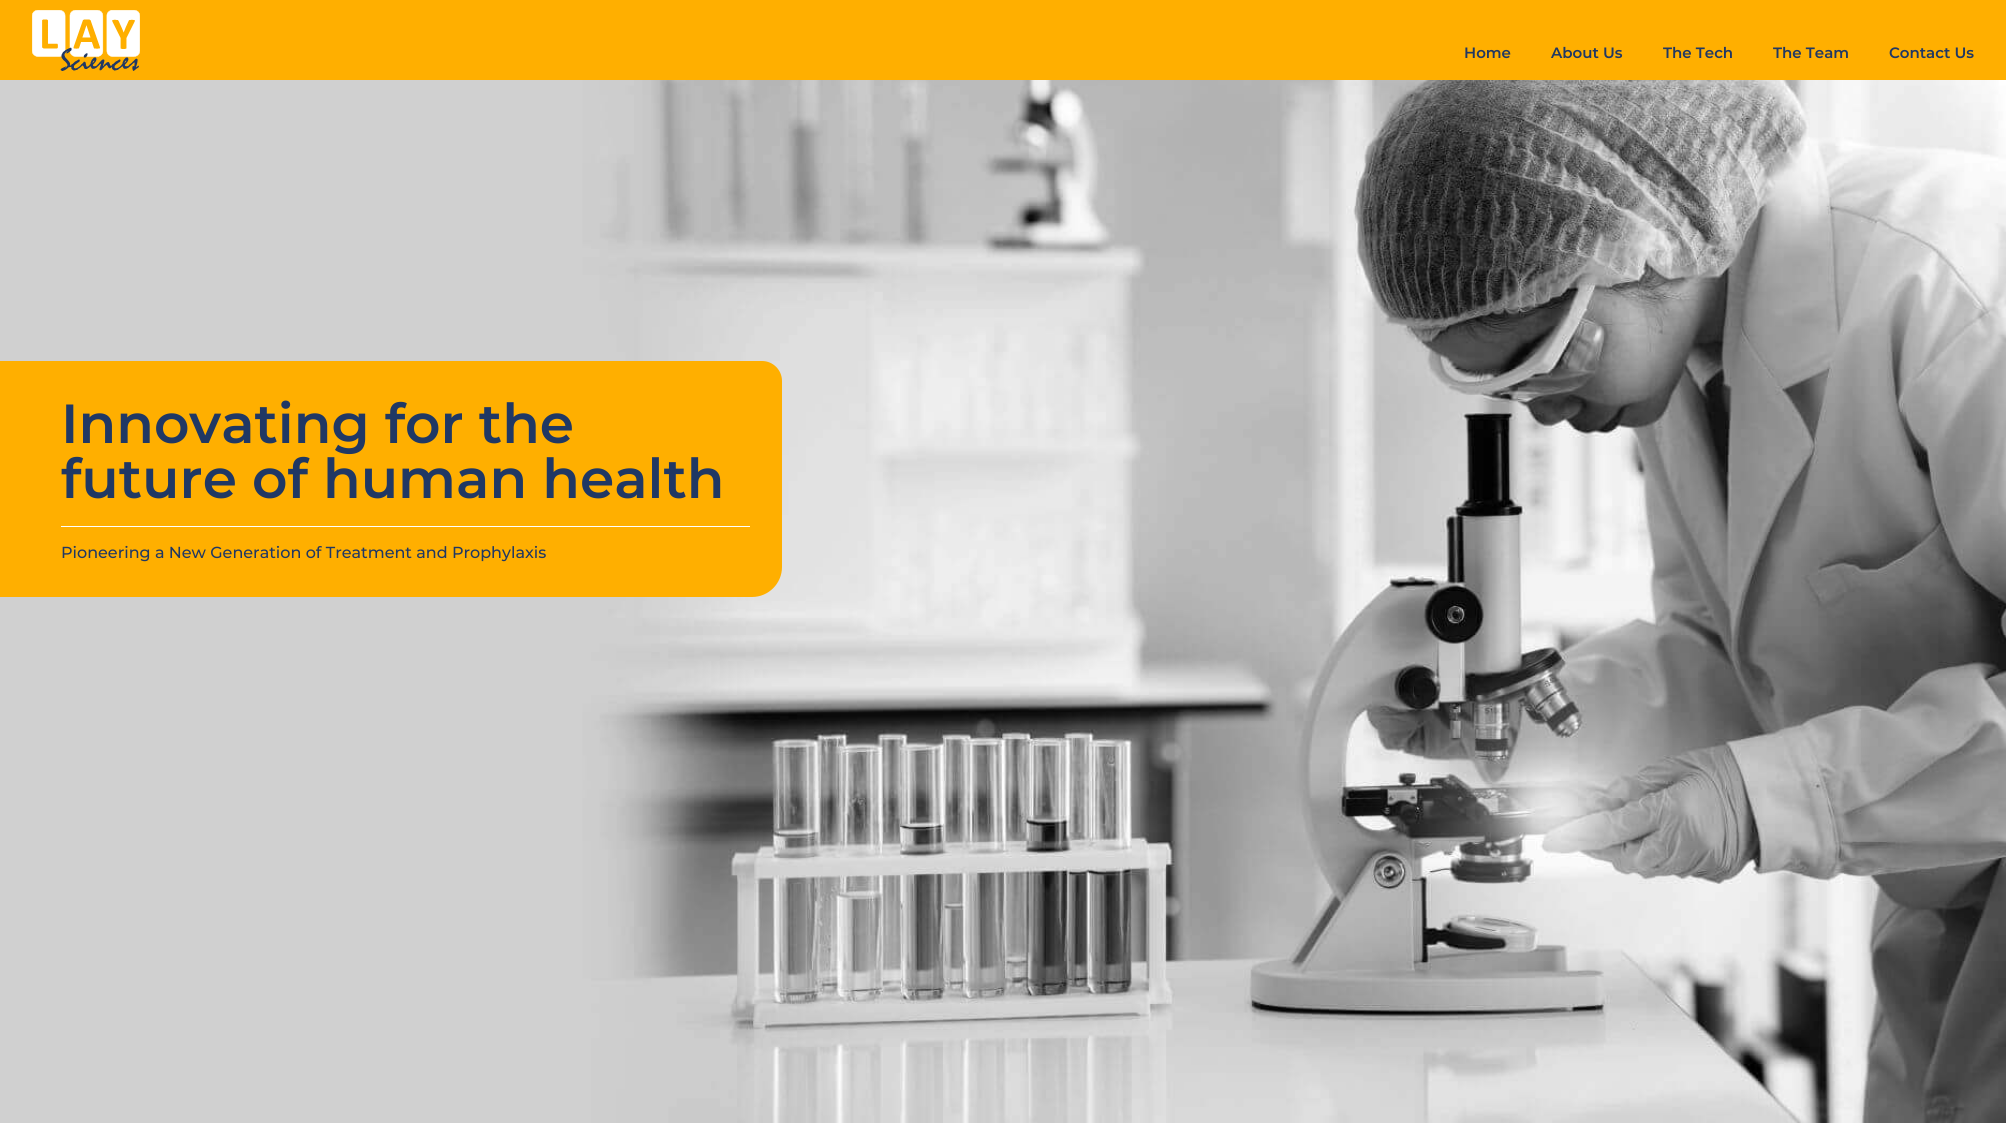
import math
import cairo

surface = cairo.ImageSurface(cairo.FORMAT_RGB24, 2006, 1123)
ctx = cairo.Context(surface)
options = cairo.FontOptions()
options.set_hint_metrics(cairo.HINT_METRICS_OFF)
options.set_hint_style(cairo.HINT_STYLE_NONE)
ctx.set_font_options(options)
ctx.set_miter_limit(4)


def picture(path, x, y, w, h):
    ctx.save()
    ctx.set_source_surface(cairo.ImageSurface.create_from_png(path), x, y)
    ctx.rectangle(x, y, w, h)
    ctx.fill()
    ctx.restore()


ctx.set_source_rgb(1, 1, 1)
ctx.paint()
ctx.set_source_rgb(1, 0.686, 0)
ctx.rectangle(0, 0, 2006, 80)
ctx.fill()
picture("img1.png", 32, 10, 108, 61)
ctx.select_font_face("Montserrat SemiBold")
ctx.set_font_size(15)
ctx.set_source_rgb(0.125, 0.22, 0.392)
ctx.move_to(1464, 58)
ctx.show_text("Home")
ctx.move_to(1551, 58)
ctx.show_text("About Us")
ctx.move_to(1663, 58)
ctx.show_text("The Tech")
ctx.move_to(1773, 58)
ctx.show_text("The Team")
ctx.move_to(1889, 58)
ctx.show_text("Contact Us")
picture("img2.png", 0, 80, 2006, 1043)
ctx.set_source_rgb(1, 0.686, 0)
ctx.new_path()
ctx.move_to(0, 361)
ctx.line_to(762, 361)
ctx.curve_to(773, 361, 782, 370, 782, 381)
ctx.line_to(782, 567)
ctx.curve_to(782, 583.5, 768.5, 597, 752, 597)
ctx.line_to(0, 597)
ctx.close_path()
ctx.fill()
ctx.set_font_size(55)
ctx.set_source_rgb(0.125, 0.22, 0.392)
ctx.move_to(61, 443)
ctx.show_text("Innovating for the")
ctx.move_to(61, 498)
ctx.show_text("future of human health")
ctx.set_source_rgb(1, 1, 1)
ctx.rectangle(61, 526, 689, 1)
ctx.fill()
ctx.select_font_face("Montserrat Medium")
ctx.set_font_size(16)
ctx.set_source_rgb(0.125, 0.22, 0.392)
ctx.move_to(61, 558)
ctx.show_text("Pioneering a New Generation of Treatment and Prophylaxis")
surface.write_to_png("page.png")
